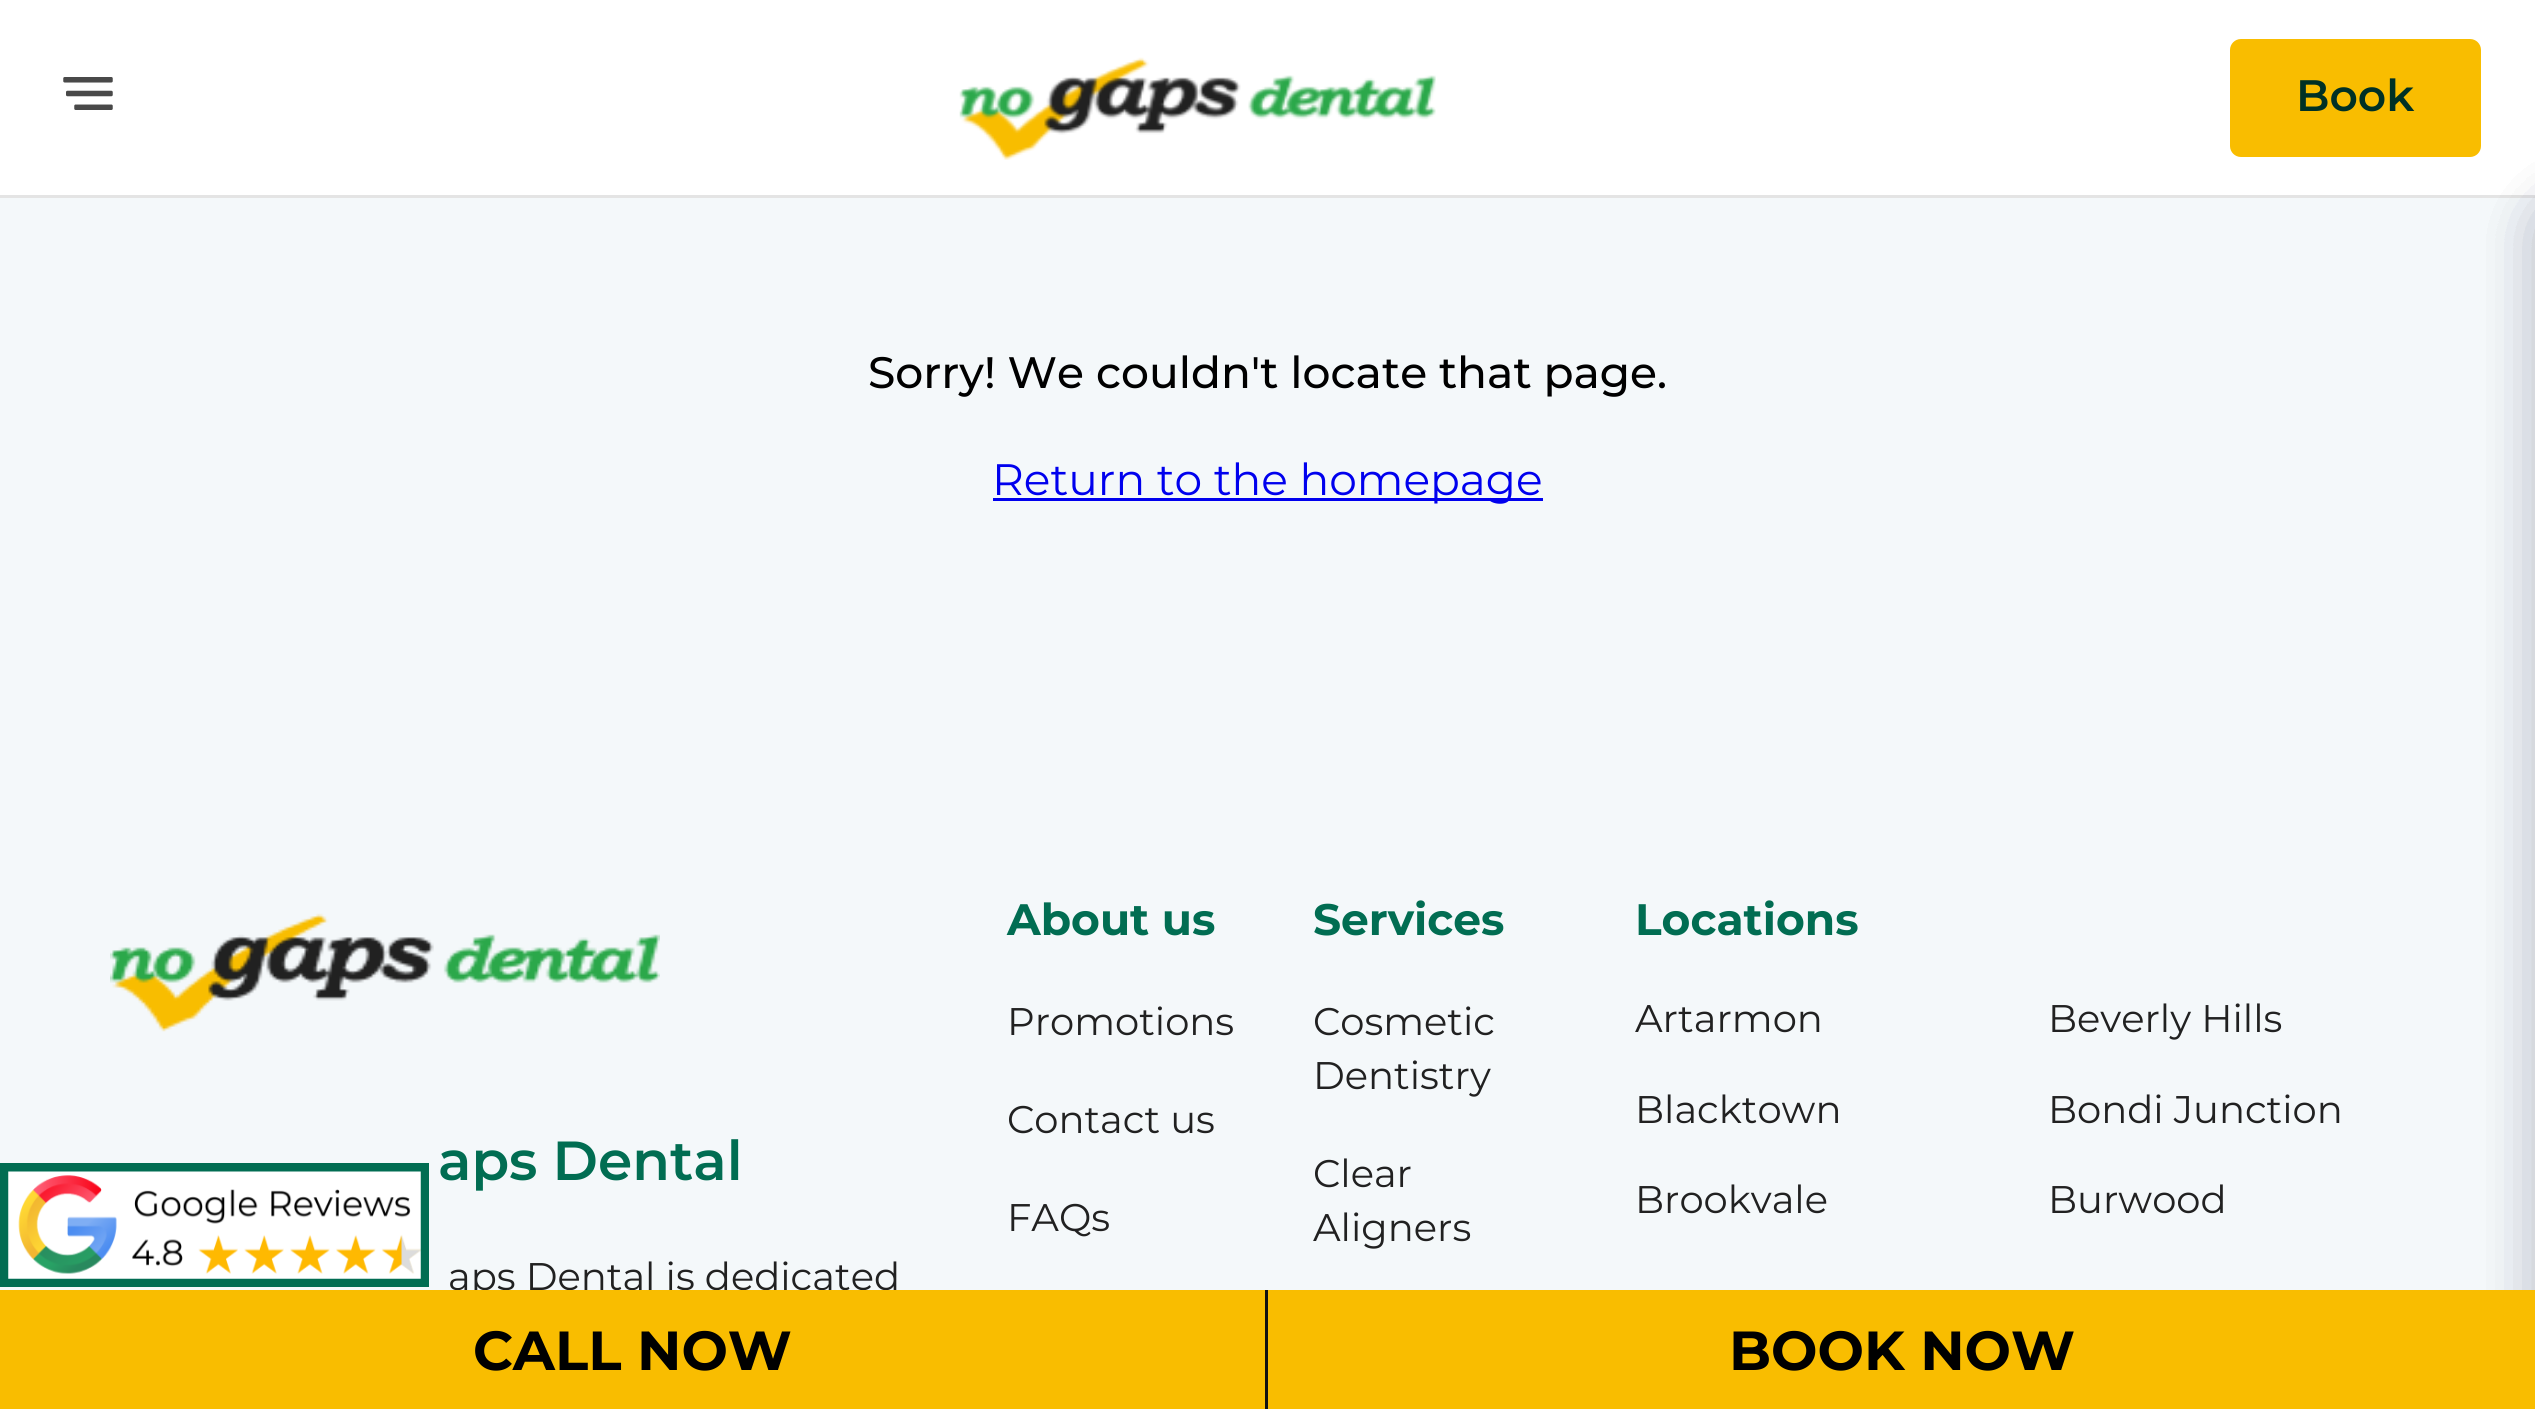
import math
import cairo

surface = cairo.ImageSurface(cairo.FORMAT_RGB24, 2535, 1409)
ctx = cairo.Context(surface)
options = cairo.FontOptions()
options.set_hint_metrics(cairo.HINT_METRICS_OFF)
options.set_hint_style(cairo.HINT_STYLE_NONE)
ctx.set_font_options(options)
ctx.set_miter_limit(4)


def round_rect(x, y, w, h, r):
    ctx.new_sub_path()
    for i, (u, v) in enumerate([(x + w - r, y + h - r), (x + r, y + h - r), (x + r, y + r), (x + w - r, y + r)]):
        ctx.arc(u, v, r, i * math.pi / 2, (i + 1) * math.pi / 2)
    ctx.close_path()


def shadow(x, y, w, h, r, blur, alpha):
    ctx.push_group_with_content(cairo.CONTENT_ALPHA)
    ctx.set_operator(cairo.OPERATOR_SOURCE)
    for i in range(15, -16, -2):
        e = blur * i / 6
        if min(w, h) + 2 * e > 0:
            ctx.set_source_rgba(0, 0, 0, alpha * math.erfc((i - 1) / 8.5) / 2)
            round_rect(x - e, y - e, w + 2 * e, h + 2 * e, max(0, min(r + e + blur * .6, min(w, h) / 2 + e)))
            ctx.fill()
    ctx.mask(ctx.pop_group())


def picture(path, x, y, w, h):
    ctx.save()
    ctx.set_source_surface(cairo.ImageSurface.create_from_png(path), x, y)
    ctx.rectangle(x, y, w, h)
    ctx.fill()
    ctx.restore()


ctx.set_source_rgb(0.957, 0.969, 0.98)
ctx.paint()
ctx.set_source_rgb(1, 1, 1)
ctx.rectangle(0, 0, 2535, 195)
ctx.fill()
ctx.set_source_rgb(0.894, 0.894, 0.894)
ctx.rectangle(0, 195, 2535, 3)
ctx.fill()
picture("img1.png", 63, 77, 50, 33)
picture("img2.png", 959, 57, 477, 103)
ctx.set_source_rgb(0.973, 0.741, 0)
round_rect(2230, 39, 251, 118, 11)
ctx.fill()
ctx.select_font_face("Montserrat SemiBold")
ctx.set_font_size(44)
ctx.set_source_rgb(0, 0.192, 0.145)
ctx.move_to(2296, 111)
ctx.show_text("Book")
ctx.set_source_rgb(0.055, 0.055, 0.173)
shadow(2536, 198, 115, 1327, 33, 27.5, 0.1)
shadow(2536, 198, 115, 1155, 33, 27.5, 0.1)
shadow(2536, 198, 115, 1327, 33, 27.5, 0.1)
ctx.select_font_face("Montserrat Medium")
ctx.set_source_rgb(0, 0, 0)
ctx.move_to(868, 388)
ctx.show_text("Sorry! We couldn't locate that page.")
ctx.set_source_rgb(0, 0, 0.933)
ctx.rectangle(993, 498, 550, 3)
ctx.fill()
ctx.select_font_face("Montserrat")
ctx.move_to(992, 495)
ctx.show_text("Return to the homepage")
ctx.set_source_rgb(0.004, 0.427, 0.322)
ctx.rectangle(0, 1163, 429, 124)
ctx.fill()
picture("img3.png", 8, 1171, 413, 108)
picture("img4.png", 110, 913, 550, 119)
ctx.select_font_face("Montserrat SemiBold")
ctx.set_font_size(55)
ctx.move_to(438, 1180)
ctx.show_text("aps Dental")
ctx.select_font_face("Montserrat")
ctx.set_font_size(38.5)
ctx.set_source_rgb(0.129, 0.129, 0.129)
ctx.move_to(448, 1290)
ctx.show_text("aps Dental is dedicated")
ctx.select_font_face("Montserrat", cairo.FONT_SLANT_NORMAL, cairo.FONT_WEIGHT_BOLD)
ctx.set_font_size(44)
ctx.set_source_rgb(0.004, 0.427, 0.322)
ctx.move_to(1007, 935)
ctx.show_text("About us")
ctx.select_font_face("Montserrat")
ctx.set_font_size(38.5)
ctx.set_source_rgb(0.129, 0.129, 0.129)
ctx.move_to(1007, 1035)
ctx.show_text("Promotions")
ctx.move_to(1007, 1133)
ctx.show_text("Contact us")
ctx.move_to(1007, 1231)
ctx.show_text("FAQs")
ctx.select_font_face("Montserrat", cairo.FONT_SLANT_NORMAL, cairo.FONT_WEIGHT_BOLD)
ctx.set_font_size(44)
ctx.set_source_rgb(0.004, 0.427, 0.322)
ctx.move_to(1313, 935)
ctx.show_text("Services")
ctx.select_font_face("Montserrat")
ctx.set_font_size(38.5)
ctx.set_source_rgb(0.129, 0.129, 0.129)
ctx.move_to(1313, 1035)
ctx.show_text("Cosmetic")
ctx.move_to(1313, 1089)
ctx.show_text("Dentistry")
ctx.move_to(1313, 1187)
ctx.show_text("Clear")
ctx.move_to(1313, 1241)
ctx.show_text("Aligners")
ctx.select_font_face("Montserrat", cairo.FONT_SLANT_NORMAL, cairo.FONT_WEIGHT_BOLD)
ctx.set_font_size(44)
ctx.set_source_rgb(0.004, 0.427, 0.322)
ctx.move_to(1635, 935)
ctx.show_text("Locations")
ctx.select_font_face("Montserrat")
ctx.set_font_size(38.5)
ctx.set_source_rgb(0.129, 0.129, 0.129)
ctx.move_to(1635, 1032)
ctx.show_text("Artarmon")
ctx.move_to(2048, 1032)
ctx.show_text("Beverly Hills")
ctx.move_to(1635, 1123)
ctx.show_text("Blacktown")
ctx.move_to(2048, 1123)
ctx.show_text("Bondi Junction")
ctx.move_to(1635, 1213)
ctx.show_text("Brookvale")
ctx.move_to(2048, 1213)
ctx.show_text("Burwood")
ctx.set_source_rgb(0.973, 0.741, 0)
ctx.rectangle(0, 1290, 2535, 119)
ctx.fill()
ctx.set_source_rgb(0.067, 0.067, 0.067)
ctx.rectangle(1265, 1290, 3, 119)
ctx.fill()
ctx.select_font_face("Montserrat", cairo.FONT_SLANT_NORMAL, cairo.FONT_WEIGHT_BOLD)
ctx.set_font_size(55)
ctx.set_source_rgb(0, 0, 0)
ctx.move_to(473, 1370)
ctx.show_text("CALL NOW")
ctx.move_to(1729, 1370)
ctx.show_text("BOOK NOW")
surface.write_to_png("page.png")
